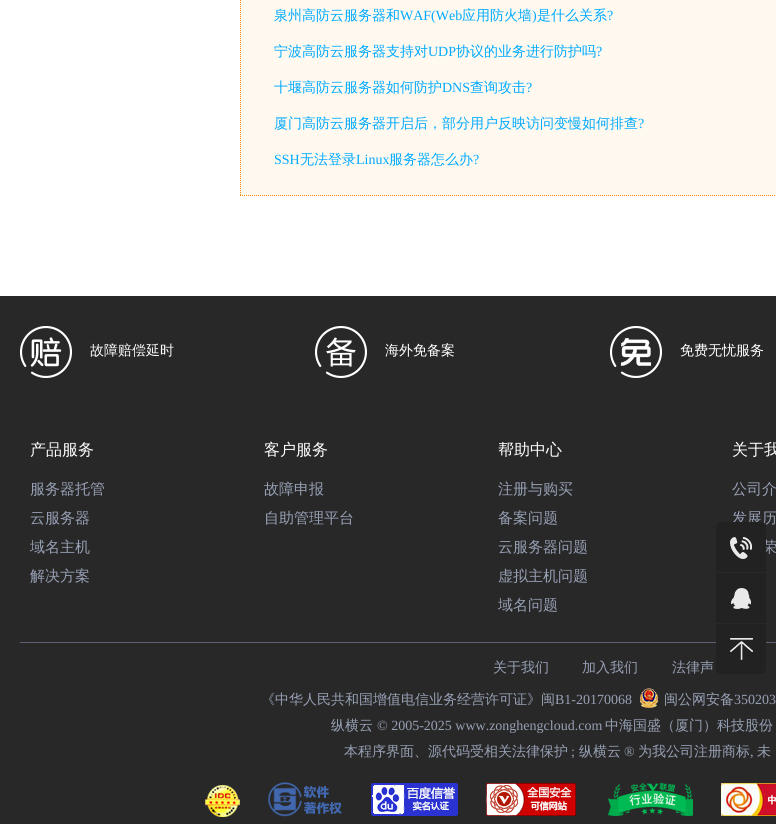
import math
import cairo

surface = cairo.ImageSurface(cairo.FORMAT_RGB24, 776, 824)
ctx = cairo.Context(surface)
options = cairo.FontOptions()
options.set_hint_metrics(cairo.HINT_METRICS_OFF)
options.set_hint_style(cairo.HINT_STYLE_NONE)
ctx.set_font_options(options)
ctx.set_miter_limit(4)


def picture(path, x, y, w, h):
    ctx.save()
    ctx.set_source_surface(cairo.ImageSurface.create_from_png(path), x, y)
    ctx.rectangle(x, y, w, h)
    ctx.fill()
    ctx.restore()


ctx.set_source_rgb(1, 1, 1)
ctx.paint()
ctx.set_source_rgb(1, 0.973, 0.941)
ctx.rectangle(240, 0, 536, 196)
ctx.fill()
ctx.new_path()
ctx.move_to(240, 195.5)
ctx.line_to(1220, 195.5)
ctx.set_source_rgb(1, 0.533, 0)
ctx.set_line_width(1)
ctx.set_dash([1, 1])
ctx.stroke()
ctx.new_path()
ctx.move_to(240.5, -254)
ctx.line_to(240.5, 196)
ctx.stroke()
ctx.select_font_face("WenQuanYi Zen Hei Medium")
ctx.set_font_size(14)
ctx.set_source_rgb(0, 0.667, 1)
ctx.move_to(274, 20)
ctx.show_text("泉州高防云服务器和")
ctx.select_font_face("Liberation Serif")
ctx.move_to(400, 20)
ctx.show_text("WAF(Web")
ctx.select_font_face("WenQuanYi Zen Hei Medium")
ctx.move_to(462, 20)
ctx.show_text("应用防火墙")
ctx.select_font_face("Liberation Serif")
ctx.move_to(532, 20)
ctx.show_text(")")
ctx.select_font_face("WenQuanYi Zen Hei Medium")
ctx.move_to(537, 20)
ctx.show_text("是什么关系")
ctx.select_font_face("Liberation Serif")
ctx.move_to(607, 20)
ctx.show_text("?")
ctx.select_font_face("WenQuanYi Zen Hei Medium")
ctx.move_to(274, 56)
ctx.show_text("宁波高防云服务器支持对")
ctx.select_font_face("Liberation Serif")
ctx.move_to(428, 56)
ctx.show_text("UDP")
ctx.select_font_face("WenQuanYi Zen Hei Medium")
ctx.move_to(456, 56)
ctx.show_text("协议的业务进行防护吗")
ctx.select_font_face("Liberation Serif")
ctx.move_to(596, 56)
ctx.show_text("?")
ctx.select_font_face("WenQuanYi Zen Hei Medium")
ctx.move_to(274, 92)
ctx.show_text("十堰高防云服务器如何防护")
ctx.select_font_face("Liberation Serif")
ctx.move_to(442, 92)
ctx.show_text("DNS")
ctx.select_font_face("WenQuanYi Zen Hei Medium")
ctx.move_to(470, 92)
ctx.show_text("查询攻击")
ctx.select_font_face("Liberation Serif")
ctx.move_to(526, 92)
ctx.show_text("?")
ctx.select_font_face("WenQuanYi Zen Hei Medium")
ctx.move_to(274, 128)
ctx.show_text("厦门高防云服务器开启后，部分用户反映访问变慢如何排查")
ctx.select_font_face("Liberation Serif")
ctx.move_to(638, 128)
ctx.show_text("?")
ctx.move_to(274, 164)
ctx.show_text("SSH")
ctx.select_font_face("WenQuanYi Zen Hei Medium")
ctx.move_to(300, 164)
ctx.show_text("无法登录")
ctx.select_font_face("Liberation Serif")
ctx.move_to(356, 164)
ctx.show_text("Linux")
ctx.select_font_face("WenQuanYi Zen Hei Medium")
ctx.move_to(389, 164)
ctx.show_text("服务器怎么办")
ctx.select_font_face("Liberation Serif")
ctx.move_to(473, 164)
ctx.show_text("?")
ctx.set_source_rgb(0.157, 0.157, 0.157)
ctx.rectangle(0, 296, 776, 528)
ctx.fill()
picture("img1.png", 20, 326, 52, 52)
ctx.select_font_face("WenQuanYi Zen Hei Medium")
ctx.set_source_rgb(1, 1, 1)
ctx.move_to(90, 355)
ctx.show_text("故障赔偿延时")
picture("img2.png", 315, 326, 52, 52)
ctx.move_to(385, 355)
ctx.show_text("海外免备案")
picture("img3.png", 610, 326, 52, 52)
ctx.move_to(680, 355)
ctx.show_text("免费无忧服务")
ctx.set_source_rgb(0.361, 0.384, 0.455)
ctx.rectangle(20, 642, 756, 1)
ctx.fill()
ctx.set_font_size(16)
ctx.set_source_rgb(1, 1, 1)
ctx.move_to(30, 455)
ctx.show_text("产品服务")
ctx.set_font_size(15)
ctx.set_source_rgb(0.592, 0.627, 0.706)
ctx.move_to(30, 494)
ctx.show_text("服务器托管")
ctx.move_to(30, 523)
ctx.show_text("云服务器")
ctx.move_to(30, 552)
ctx.show_text("域名主机")
ctx.move_to(30, 581)
ctx.show_text("解决方案")
ctx.set_font_size(16)
ctx.set_source_rgb(1, 1, 1)
ctx.move_to(264, 455)
ctx.show_text("客户服务")
ctx.set_font_size(15)
ctx.set_source_rgb(0.592, 0.627, 0.706)
ctx.move_to(264, 494)
ctx.show_text("故障申报")
ctx.move_to(264, 523)
ctx.show_text("自助管理平台")
ctx.set_font_size(16)
ctx.set_source_rgb(1, 1, 1)
ctx.move_to(498, 455)
ctx.show_text("帮助中心")
ctx.set_font_size(15)
ctx.set_source_rgb(0.592, 0.627, 0.706)
ctx.move_to(498, 494)
ctx.show_text("注册与购买")
ctx.move_to(498, 523)
ctx.show_text("备案问题")
ctx.move_to(498, 552)
ctx.show_text("云服务器问题")
ctx.move_to(498, 581)
ctx.show_text("虚拟主机问题")
ctx.move_to(498, 610)
ctx.show_text("域名问题")
ctx.set_font_size(16)
ctx.set_source_rgb(1, 1, 1)
ctx.move_to(732, 455)
ctx.show_text("关于我")
ctx.set_font_size(15)
ctx.set_source_rgb(0.592, 0.627, 0.706)
ctx.move_to(732, 494)
ctx.show_text("公司介")
ctx.move_to(732, 523)
ctx.show_text("发展历")
ctx.move_to(762, 552)
ctx.show_text("荣")
ctx.set_font_size(14)
ctx.move_to(493, 672)
ctx.show_text("关于我们")
ctx.move_to(582, 672)
ctx.show_text("加入我们")
ctx.move_to(672, 672)
ctx.show_text("法律声")
ctx.move_to(261, 704)
ctx.show_text("《中华人民共和国增值电信业务经营许可证》闽")
ctx.select_font_face("Liberation Serif")
ctx.move_to(555, 704)
ctx.show_text("B1-20170068")
picture("img4.png", 640, 688, 18, 20)
ctx.select_font_face("WenQuanYi Zen Hei Medium")
ctx.move_to(664, 704)
ctx.show_text("闽公网安备")
ctx.select_font_face("Liberation Serif")
ctx.move_to(734, 704)
ctx.show_text("350203")
ctx.select_font_face("WenQuanYi Zen Hei Medium")
ctx.move_to(331, 730)
ctx.show_text("纵横云")
ctx.select_font_face("Liberation Serif")
ctx.move_to(377, 730)
ctx.show_text("© 2005-2025 www.zonghengcloud.com")
ctx.select_font_face("WenQuanYi Zen Hei Medium")
ctx.move_to(605, 730)
ctx.show_text("中海国盛（厦门）科技股份")
ctx.move_to(344, 756)
ctx.show_text("本程序界面、源代码受相关法律保护")
ctx.select_font_face("Liberation Serif")
ctx.move_to(571, 756)
ctx.show_text(";")
ctx.select_font_face("WenQuanYi Zen Hei Medium")
ctx.move_to(579, 756)
ctx.show_text("纵横云")
ctx.select_font_face("Liberation Serif")
ctx.move_to(624, 756)
ctx.show_text("®")
ctx.select_font_face("WenQuanYi Zen Hei Medium")
ctx.move_to(638, 756)
ctx.show_text("为我公司注册商标")
ctx.select_font_face("Liberation Serif")
ctx.move_to(750, 756)
ctx.show_text(",")
ctx.select_font_face("WenQuanYi Zen Hei Medium")
ctx.move_to(757, 756)
ctx.show_text("未")
picture("img5.png", 205, 785, 35, 32)
picture("img6.png", 268, 782, 74, 35)
picture("img7.png", 371, 782, 87, 34)
picture("img8.png", 486, 783, 90, 33)
picture("img9.png", 608, 783, 85, 33)
picture("img10.png", 721, 783, 55, 33)
ctx.set_source_rgb(0.133, 0.133, 0.133)
ctx.new_path()
ctx.move_to(720, 522)
ctx.line_to(762, 522)
ctx.curve_to(764, 522, 766, 524, 766, 526)
ctx.line_to(766, 572)
ctx.line_to(716, 572)
ctx.line_to(716, 526)
ctx.curve_to(716, 524, 718, 522, 720, 522)
ctx.close_path()
ctx.fill()
picture("img11.png", 730, 537, 22, 22)
ctx.rectangle(716, 573, 50, 50)
ctx.fill()
picture("img12.png", 731, 588, 20, 21)
ctx.new_path()
ctx.move_to(716, 624)
ctx.line_to(766, 624)
ctx.line_to(766, 670)
ctx.curve_to(766, 672, 764, 674, 762, 674)
ctx.line_to(720, 674)
ctx.curve_to(718, 674, 716, 672, 716, 670)
ctx.close_path()
ctx.fill()
picture("img13.png", 730, 638, 23, 22)
surface.write_to_png("page.png")
